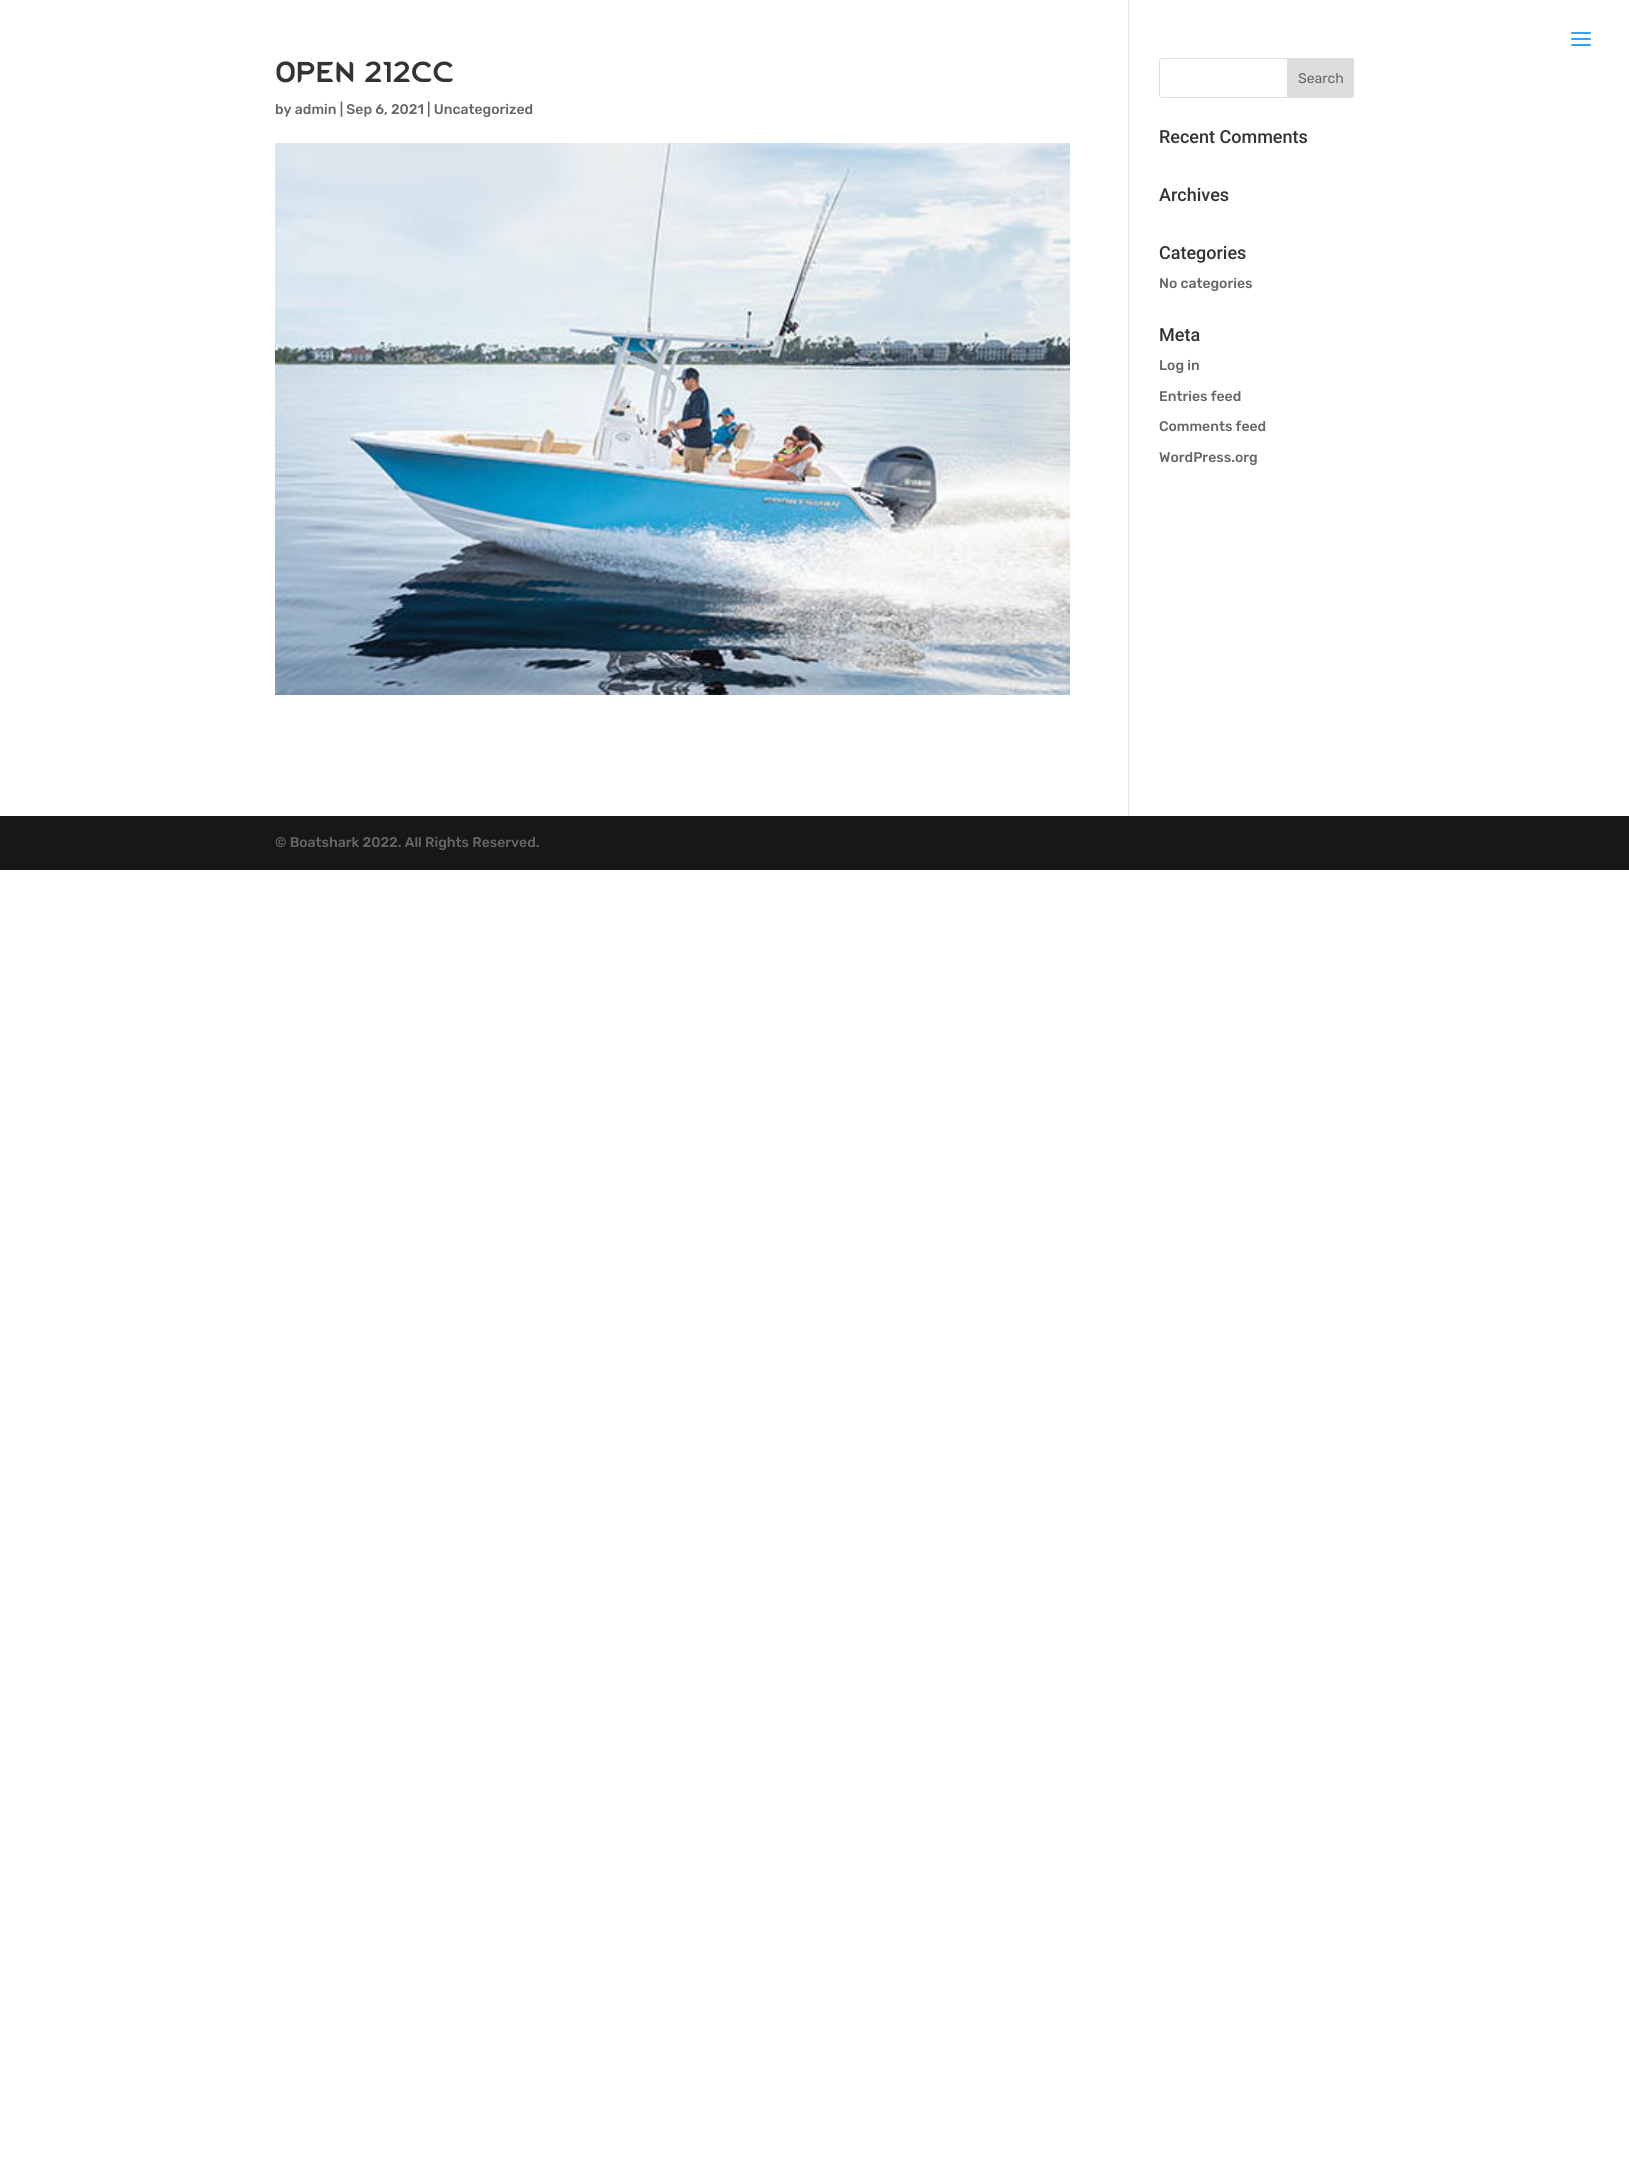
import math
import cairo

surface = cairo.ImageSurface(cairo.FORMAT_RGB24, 1629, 2176)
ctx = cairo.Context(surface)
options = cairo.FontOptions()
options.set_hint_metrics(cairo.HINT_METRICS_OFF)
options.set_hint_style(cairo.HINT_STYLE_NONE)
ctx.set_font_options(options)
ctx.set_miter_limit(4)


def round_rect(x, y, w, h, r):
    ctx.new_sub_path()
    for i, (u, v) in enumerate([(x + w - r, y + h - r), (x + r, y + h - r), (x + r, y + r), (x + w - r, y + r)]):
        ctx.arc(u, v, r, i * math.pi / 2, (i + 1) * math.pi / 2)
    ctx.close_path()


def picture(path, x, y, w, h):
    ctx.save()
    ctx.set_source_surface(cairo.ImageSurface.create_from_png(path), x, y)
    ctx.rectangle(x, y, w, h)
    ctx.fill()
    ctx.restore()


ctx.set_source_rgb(1, 1, 1)
ctx.paint()
picture("img1.png", 1571, 32, 20, 14)
ctx.set_source_rgb(0.886, 0.886, 0.886)
ctx.rectangle(1128, 0, 1, 816)
ctx.fill()
ctx.select_font_face("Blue")
ctx.set_font_size(30)
ctx.set_source_rgb(0.2, 0.2, 0.2)
ctx.move_to(275, 82)
ctx.show_text("OPEN 212CC")
ctx.select_font_face("Rubik Medium")
ctx.set_font_size(14)
ctx.set_source_rgb(0.4, 0.4, 0.4)
ctx.move_to(275, 114)
ctx.show_text("by admin | Sep 6, 2021 | Uncategorized")
picture("img2.png", 275, 143, 795, 552)
round_rect(1159.5, 58.5, 194, 39, 2.5)
ctx.set_source_rgb(0.867, 0.867, 0.867)
ctx.set_line_width(1)
ctx.stroke()
ctx.new_path()
ctx.move_to(1287.5, 58.5)
ctx.line_to(1351, 58.5)
ctx.curve_to(1352.5, 58.5, 1353.5, 59.5, 1353.5, 61)
ctx.line_to(1353.5, 95)
ctx.curve_to(1353.5, 96.5, 1352.5, 97.5, 1351, 97.5)
ctx.line_to(1287.5, 97.5)
ctx.close_path()
ctx.fill_preserve()
ctx.stroke()
ctx.select_font_face("Rubik")
ctx.set_source_rgb(0.4, 0.4, 0.4)
ctx.move_to(1298, 83)
ctx.show_text("Search")
ctx.select_font_face("Roboto Medium")
ctx.set_font_size(18)
ctx.set_source_rgb(0.2, 0.2, 0.2)
ctx.move_to(1159, 143)
ctx.show_text("Recent Comments")
ctx.move_to(1159, 201)
ctx.show_text("Archives")
ctx.move_to(1159, 259)
ctx.show_text("Categories")
ctx.select_font_face("Rubik Medium")
ctx.set_font_size(14)
ctx.set_source_rgb(0.4, 0.4, 0.4)
ctx.move_to(1159, 288)
ctx.show_text("No categories")
ctx.select_font_face("Roboto Medium")
ctx.set_font_size(18)
ctx.set_source_rgb(0.2, 0.2, 0.2)
ctx.move_to(1159, 341)
ctx.show_text("Meta")
ctx.select_font_face("Rubik Medium")
ctx.set_font_size(14)
ctx.set_source_rgb(0.4, 0.4, 0.4)
ctx.move_to(1159, 370)
ctx.show_text("Log in")
ctx.move_to(1159, 401)
ctx.show_text("Entries feed")
ctx.move_to(1159, 431)
ctx.show_text("Comments feed")
ctx.move_to(1159, 462)
ctx.show_text("WordPress.org")
ctx.set_source_rgb(0.09, 0.09, 0.09)
ctx.rectangle(0, 816, 1629, 54)
ctx.fill()
ctx.set_source_rgb(0.4, 0.4, 0.4)
ctx.move_to(275, 847)
ctx.show_text("© Boatshark 2022. All Rights Reserved.")
surface.write_to_png("page.png")
